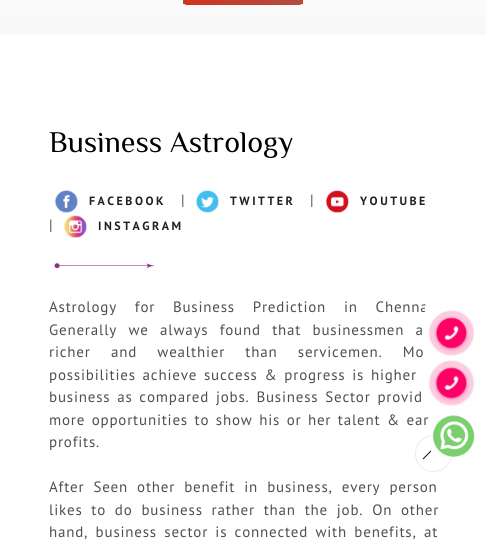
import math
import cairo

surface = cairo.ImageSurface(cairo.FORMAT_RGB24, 486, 543)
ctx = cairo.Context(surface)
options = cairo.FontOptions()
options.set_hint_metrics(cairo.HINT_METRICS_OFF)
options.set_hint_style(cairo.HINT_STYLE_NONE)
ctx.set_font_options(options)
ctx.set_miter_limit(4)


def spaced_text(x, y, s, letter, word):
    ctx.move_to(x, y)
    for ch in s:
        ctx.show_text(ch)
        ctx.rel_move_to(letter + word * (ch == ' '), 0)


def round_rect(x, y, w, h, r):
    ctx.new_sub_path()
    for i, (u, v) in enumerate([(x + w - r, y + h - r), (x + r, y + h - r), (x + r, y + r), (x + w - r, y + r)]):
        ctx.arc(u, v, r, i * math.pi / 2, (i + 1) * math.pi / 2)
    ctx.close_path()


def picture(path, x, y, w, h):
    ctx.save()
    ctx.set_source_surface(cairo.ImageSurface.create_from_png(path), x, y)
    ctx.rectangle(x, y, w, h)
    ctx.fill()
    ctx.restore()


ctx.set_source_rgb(1, 1, 1)
ctx.paint()
gradient = cairo.LinearGradient(243, 35, 243, -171)
gradient.add_color_stop_rgba(0, 0.976, 0.976, 0.976, 1)
gradient.add_color_stop_rgba(1, 1, 1, 1, 1)
ctx.set_source(gradient)
ctx.rectangle(0, 0, 486, 35)
ctx.fill()
gradient = cairo.LinearGradient(72, -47, 178, 15)
gradient.add_color_stop_rgba(0, 0.831, 0.184, 0.098, 1)
gradient.add_color_stop_rgba(1, 0.686, 0.306, 0.259, 1)
ctx.set_source(gradient)
ctx.rectangle(183, 0, 1, 4)
ctx.fill()
gradient = cairo.LinearGradient(190, -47, 296, 15)
gradient.add_color_stop_rgba(0, 0.831, 0.184, 0.098, 1)
gradient.add_color_stop_rgba(1, 0.686, 0.306, 0.259, 1)
ctx.set_source(gradient)
ctx.rectangle(184, 0, 118, 4)
ctx.fill()
gradient = cairo.LinearGradient(308, -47, 414, 15)
gradient.add_color_stop_rgba(0, 0.831, 0.184, 0.098, 1)
gradient.add_color_stop_rgba(1, 0.686, 0.306, 0.259, 1)
ctx.set_source(gradient)
ctx.rectangle(302, 0, 1, 4)
ctx.fill()
ctx.save()
round_rect(183, -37, 120, 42, 4)
ctx.clip()
gradient = cairo.LinearGradient(190, -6.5, 296, 55)
gradient.add_color_stop_rgba(0, 0.831, 0.184, 0.098, 1)
gradient.add_color_stop_rgba(1, 0.686, 0.306, 0.259, 1)
ctx.set_source(gradient)
ctx.rectangle(184, 4, 118, 1)
ctx.fill()
ctx.restore()
ctx.select_font_face("Philosopher")
ctx.set_font_size(30)
ctx.set_source_rgb(0, 0, 0)
ctx.move_to(49, 152)
ctx.show_text("Business Astrology")
picture("img1.png", 55, 190, 23, 23)
ctx.select_font_face("PT Sans", cairo.FONT_SLANT_NORMAL, cairo.FONT_WEIGHT_BOLD)
ctx.set_font_size(12)
ctx.set_source_rgb(0.137, 0.122, 0.125)
spaced_text(89, 205, "FACEBOOK", 2.5, 0)
ctx.select_font_face("PT Sans")
ctx.set_font_size(15)
ctx.set_source_rgb(0.31, 0.31, 0.31)
spaced_text(181, 205, "|", 0.8, 0)
picture("img2.png", 196, 190, 23, 23)
ctx.select_font_face("PT Sans", cairo.FONT_SLANT_NORMAL, cairo.FONT_WEIGHT_BOLD)
ctx.set_font_size(12)
ctx.set_source_rgb(0.137, 0.122, 0.125)
spaced_text(230, 205, "TWITTER", 2.5, 0)
ctx.select_font_face("PT Sans")
ctx.set_font_size(15)
ctx.set_source_rgb(0.31, 0.31, 0.31)
spaced_text(310, 205, "|", 0.8, 0)
picture("img3.png", 325, 190, 24, 23)
ctx.select_font_face("PT Sans", cairo.FONT_SLANT_NORMAL, cairo.FONT_WEIGHT_BOLD)
ctx.set_font_size(12)
ctx.set_source_rgb(0.137, 0.122, 0.125)
spaced_text(360, 205, "YOUTUBE", 2.5, 0)
ctx.select_font_face("PT Sans")
ctx.set_font_size(15)
ctx.set_source_rgb(0.31, 0.31, 0.31)
spaced_text(49, 230, "|", 0.8, 0)
picture("img4.png", 64, 215, 23, 23)
ctx.select_font_face("PT Sans", cairo.FONT_SLANT_NORMAL, cairo.FONT_WEIGHT_BOLD)
ctx.set_font_size(12)
ctx.set_source_rgb(0.137, 0.122, 0.125)
spaced_text(98, 230, "INSTAGRAM", 2.5, 0)
picture("img5.png", 54, 262, 101, 7)
ctx.select_font_face("PT Sans")
ctx.set_font_size(15)
ctx.set_source_rgb(0.31, 0.31, 0.31)
spaced_text(49, 312, "Astrology for Business Prediction in Chenna", 0.8, 13)
spaced_text(49, 335, "Generally we always found that businessmen a", 0.8, 6.5)
spaced_text(49, 357, "richer and wealthier than servicemen. Mo", 0.8, 15.5)
spaced_text(49, 380, "possibilities achieve success & progress is higher", 0.8, 2)
spaced_text(49, 402, "business as compared jobs. Business Sector provid", 0.8, 2)
spaced_text(49, 425, "more opportunities to show his or her talent & ear", 0.8, 1.75)
spaced_text(49, 447, "profits.", 0.8, 0)
spaced_text(49, 492, "After Seen other benefit in business, every person", 0.8, 4.25)
spaced_text(49, 515, "likes to do business rather than the job. On other", 0.8, 4)
spaced_text(49, 537, "hand, business sector is connected with benefits, at", 0.8, 2.5)
picture("img6.png", 425, 305, 50, 51)
picture("img7.png", 425, 356, 50, 50)
picture("img9.png", 415, 435, 37, 37)
picture("img8.png", 431, 415, 44, 44)
surface.write_to_png("page.png")
